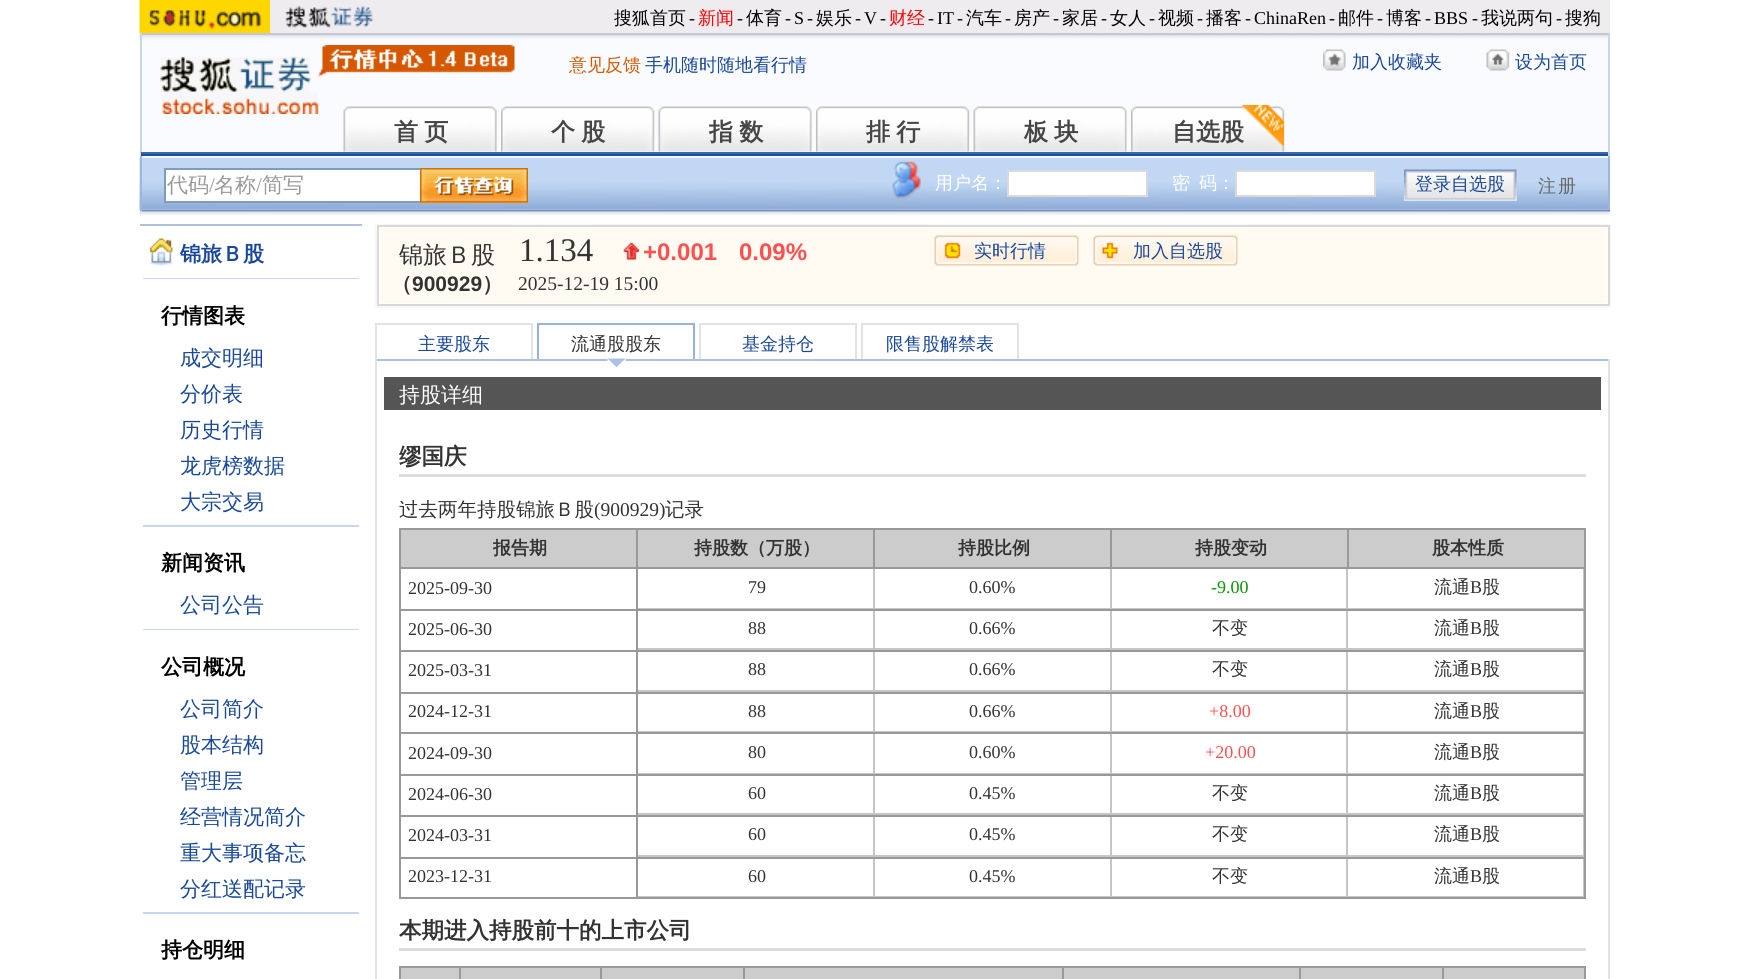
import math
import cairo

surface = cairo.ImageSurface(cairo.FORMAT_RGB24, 1749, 979)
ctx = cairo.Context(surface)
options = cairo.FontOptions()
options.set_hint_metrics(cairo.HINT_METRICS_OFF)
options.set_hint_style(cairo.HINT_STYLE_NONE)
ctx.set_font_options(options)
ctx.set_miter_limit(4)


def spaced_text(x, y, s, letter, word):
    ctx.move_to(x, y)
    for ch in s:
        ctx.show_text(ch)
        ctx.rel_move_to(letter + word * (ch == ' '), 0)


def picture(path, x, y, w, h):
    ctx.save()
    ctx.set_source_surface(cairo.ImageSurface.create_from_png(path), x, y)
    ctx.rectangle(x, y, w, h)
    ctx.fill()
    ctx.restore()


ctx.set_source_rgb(1, 1, 1)
ctx.paint()
ctx.set_source_rgb(0.937, 0.922, 0.937)
ctx.rectangle(270, 0, 1340, 33)
ctx.fill()
picture("img1.png", 139, 0, 131, 33)
picture("img2.png", 285, 5, 89, 23)
ctx.select_font_face("WenQuanYi Zen Hei Medium")
ctx.set_font_size(18)
ctx.set_source_rgb(0, 0, 0)
ctx.move_to(614, 24)
ctx.show_text("搜狐首页")
ctx.select_font_face("Liberation Serif")
ctx.move_to(689, 24)
ctx.show_text("-")
ctx.select_font_face("WenQuanYi Zen Hei Medium")
ctx.set_source_rgb(1, 0, 0)
ctx.move_to(698, 24)
ctx.show_text("新闻")
ctx.select_font_face("Liberation Serif")
ctx.set_source_rgb(0, 0, 0)
ctx.move_to(737, 24)
ctx.show_text("-")
ctx.select_font_face("WenQuanYi Zen Hei Medium")
ctx.move_to(746, 24)
ctx.show_text("体育")
ctx.select_font_face("Liberation Serif")
ctx.move_to(785, 24)
ctx.show_text("-")
ctx.move_to(794, 24)
ctx.show_text("S")
ctx.move_to(807, 24)
ctx.show_text("-")
ctx.select_font_face("WenQuanYi Zen Hei Medium")
ctx.move_to(816, 24)
ctx.show_text("娱乐")
ctx.select_font_face("Liberation Serif")
ctx.move_to(855, 24)
ctx.show_text("-")
ctx.move_to(864, 24)
ctx.show_text("V")
ctx.move_to(880, 24)
ctx.show_text("-")
ctx.select_font_face("WenQuanYi Zen Hei Medium")
ctx.set_source_rgb(1, 0, 0)
ctx.move_to(889, 24)
ctx.show_text("财经")
ctx.select_font_face("Liberation Serif")
ctx.set_source_rgb(0, 0, 0)
ctx.move_to(928, 24)
ctx.show_text("-")
ctx.move_to(937, 24)
ctx.show_text("IT")
ctx.move_to(957, 24)
ctx.show_text("-")
ctx.select_font_face("WenQuanYi Zen Hei Medium")
ctx.move_to(966, 24)
ctx.show_text("汽车")
ctx.select_font_face("Liberation Serif")
ctx.move_to(1005, 24)
ctx.show_text("-")
ctx.select_font_face("WenQuanYi Zen Hei Medium")
ctx.move_to(1014, 24)
ctx.show_text("房产")
ctx.select_font_face("Liberation Serif")
ctx.move_to(1053, 24)
ctx.show_text("-")
ctx.select_font_face("WenQuanYi Zen Hei Medium")
ctx.move_to(1062, 24)
ctx.show_text("家居")
ctx.select_font_face("Liberation Serif")
ctx.move_to(1101, 24)
ctx.show_text("-")
ctx.select_font_face("WenQuanYi Zen Hei Medium")
ctx.move_to(1110, 24)
ctx.show_text("女人")
ctx.select_font_face("Liberation Serif")
ctx.move_to(1149, 24)
ctx.show_text("-")
ctx.select_font_face("WenQuanYi Zen Hei Medium")
ctx.move_to(1158, 24)
ctx.show_text("视频")
ctx.select_font_face("Liberation Serif")
ctx.move_to(1197, 24)
ctx.show_text("-")
ctx.select_font_face("WenQuanYi Zen Hei Medium")
ctx.move_to(1206, 24)
ctx.show_text("播客")
ctx.select_font_face("Liberation Serif")
ctx.move_to(1245, 24)
ctx.show_text("-")
ctx.move_to(1254, 24)
ctx.show_text("ChinaRen")
ctx.move_to(1329, 24)
ctx.show_text("-")
ctx.select_font_face("WenQuanYi Zen Hei Medium")
ctx.move_to(1338, 24)
ctx.show_text("邮件")
ctx.select_font_face("Liberation Serif")
ctx.move_to(1377, 24)
ctx.show_text("-")
ctx.select_font_face("WenQuanYi Zen Hei Medium")
ctx.move_to(1386, 24)
ctx.show_text("博客")
ctx.select_font_face("Liberation Serif")
ctx.move_to(1425, 24)
ctx.show_text("-")
ctx.move_to(1434, 24)
ctx.show_text("BBS")
ctx.move_to(1472, 24)
ctx.show_text("-")
ctx.select_font_face("WenQuanYi Zen Hei Medium")
ctx.move_to(1481, 24)
ctx.show_text("我说两句")
ctx.select_font_face("Liberation Serif")
ctx.move_to(1556, 24)
ctx.show_text("-")
ctx.select_font_face("WenQuanYi Zen Hei Medium")
ctx.move_to(1565, 24)
ctx.show_text("搜狗")
ctx.set_source_rgb(0.98, 0.984, 0.996)
ctx.rectangle(142, 40, 1466, 112)
ctx.fill()
picture("img3.png", 139, 34, 1469, 6)
ctx.set_source_rgb(0.761, 0.78, 0.831)
ctx.rectangle(140, 33, 1470, 2)
ctx.fill()
ctx.set_source_rgb(0.784, 0.839, 0.898)
ctx.rectangle(1608, 33, 2, 123)
ctx.fill()
ctx.rectangle(140, 33, 2, 123)
ctx.fill()
picture("img4.png", 160, 45, 355, 69)
ctx.set_source_rgb(0.835, 0.345, 0)
ctx.move_to(569, 71)
ctx.show_text("意见反馈")
ctx.set_source_rgb(0.094, 0.278, 0.608)
ctx.move_to(645, 71)
ctx.show_text("手机随时随地看行情")
picture("img5.png", 1323, 49, 23, 22)
ctx.move_to(1352, 68)
ctx.show_text("加入收藏夹")
picture("img6.png", 1486, 49, 24, 22)
ctx.move_to(1515, 68)
ctx.show_text("设为首页")
picture("img7.png", 343, 106, 154, 46)
ctx.select_font_face("WenQuanYi Zen Hei", cairo.FONT_SLANT_NORMAL, cairo.FONT_WEIGHT_BOLD)
ctx.set_font_size(24)
ctx.set_source_rgb(0.275, 0.275, 0.275)
spaced_text(394, 140, "首 页", 0, -1)
picture("img8.png", 501, 106, 154, 46)
spaced_text(551, 140, "个 股", 0, -1)
picture("img9.png", 658, 106, 154, 46)
spaced_text(709, 140, "指 数", 0, -1)
picture("img10.png", 816, 106, 154, 46)
spaced_text(866, 140, "排 行", 0, -1)
picture("img11.png", 973, 106, 154, 46)
spaced_text(1024, 140, "板 块", 0, -1)
picture("img12.png", 1131, 106, 154, 46)
picture("img13.png", 1241, 105, 43, 41)
ctx.move_to(1172, 140)
ctx.show_text("自选股")
ctx.set_source_rgb(0.125, 0.282, 0.549)
ctx.rectangle(141, 154, 1467, 1)
ctx.fill()
ctx.set_source_rgb(0.196, 0.416, 0.722)
ctx.rectangle(141, 152, 1467, 2)
ctx.fill()
ctx.set_source_rgb(0.173, 0.322, 0.573)
ctx.rectangle(141, 155, 1467, 1)
ctx.fill()
picture("img14.png", 139, 156, 1469, 56)
ctx.set_source_rgb(0.933, 0.969, 1)
ctx.rectangle(140, 156, 1470, 2)
ctx.fill()
ctx.set_source_rgb(0.608, 0.718, 0.871)
ctx.rectangle(1608, 156, 2, 56)
ctx.fill()
ctx.set_source_rgb(0.459, 0.561, 0.725)
ctx.rectangle(140, 210, 1470, 2)
ctx.fill()
ctx.set_source_rgb(0.608, 0.718, 0.871)
ctx.rectangle(140, 156, 2, 56)
ctx.fill()
ctx.set_source_rgb(1, 1, 1)
ctx.rectangle(165, 169, 256, 33)
ctx.fill_preserve()
ctx.set_source_rgb(0.498, 0.616, 0.725)
ctx.stroke()
ctx.select_font_face("WenQuanYi Zen Hei Medium")
ctx.set_font_size(21)
ctx.set_source_rgb(0.6, 0.6, 0.6)
ctx.move_to(167, 192)
ctx.show_text("代码")
ctx.select_font_face("Liberation Serif")
ctx.move_to(209, 192)
ctx.show_text("/")
ctx.select_font_face("WenQuanYi Zen Hei Medium")
ctx.move_to(214, 192)
ctx.show_text("名称")
ctx.select_font_face("Liberation Serif")
ctx.move_to(256, 192)
ctx.show_text("/")
ctx.select_font_face("WenQuanYi Zen Hei Medium")
ctx.move_to(262, 192)
ctx.show_text("简写")
ctx.set_source_rgb(1, 0.6, 0)
ctx.rectangle(420, 202, 108, 1)
ctx.fill()
picture("img15.png", 420, 168, 108, 35)
picture("img16.png", 892, 161, 29, 39)
ctx.set_font_size(18)
ctx.set_source_rgb(1, 1, 1)
ctx.move_to(935, 189)
ctx.show_text("用户名：")
ctx.rectangle(1008, 171, 139, 25)
ctx.fill_preserve()
ctx.set_source_rgb(0.851, 0.851, 0.851)
ctx.stroke()
ctx.set_source_rgb(1, 1, 1)
ctx.move_to(1172, 189)
ctx.show_text("密")
ctx.move_to(1199, 189)
ctx.show_text("码：")
ctx.rectangle(1236, 171, 139, 25)
ctx.fill_preserve()
ctx.set_source_rgb(0.851, 0.851, 0.851)
ctx.stroke()
ctx.set_source_rgb(0.855, 0.855, 0.855)
ctx.rectangle(1516, 170, 1, 31)
ctx.fill()
picture("img17.png", 1404, 169, 113, 32)
ctx.set_source_rgb(0.094, 0.278, 0.608)
ctx.move_to(1415, 190)
ctx.show_text("登录自选股")
ctx.set_source_rgb(0.4, 0.4, 0.4)
spaced_text(1538, 192, "注册", 2, 0)
picture("img18.png", 139, 211, 1471, 5)
ctx.set_source_rgb(0.694, 0.757, 0.863)
ctx.rectangle(140, 224, 222, 2)
ctx.fill()
ctx.set_source_rgb(0.784, 0.843, 0.941)
ctx.rectangle(143, 278, 216, 1)
ctx.fill()
picture("img19.png", 150, 238, 23, 28)
ctx.select_font_face("WenQuanYi Zen Hei", cairo.FONT_SLANT_NORMAL, cairo.FONT_WEIGHT_BOLD)
ctx.set_font_size(21)
ctx.set_source_rgb(0.094, 0.278, 0.608)
ctx.move_to(180, 261)
ctx.show_text("锦旅Ｂ股")
ctx.set_source_rgb(0.784, 0.843, 0.941)
ctx.rectangle(143, 525, 216, 2)
ctx.fill()
ctx.set_source_rgb(0, 0, 0)
ctx.move_to(161, 323)
ctx.show_text("行情图表")
ctx.select_font_face("WenQuanYi Zen Hei Medium")
ctx.set_source_rgb(0.094, 0.278, 0.608)
ctx.move_to(180, 365)
ctx.show_text("成交明细")
ctx.move_to(180, 401)
ctx.show_text("分价表")
ctx.move_to(180, 437)
ctx.show_text("历史行情")
ctx.move_to(180, 473)
ctx.show_text("龙虎榜数据")
ctx.move_to(180, 509)
ctx.show_text("大宗交易")
ctx.set_source_rgb(0.784, 0.843, 0.941)
ctx.rectangle(143, 629, 216, 1)
ctx.fill()
ctx.select_font_face("WenQuanYi Zen Hei", cairo.FONT_SLANT_NORMAL, cairo.FONT_WEIGHT_BOLD)
ctx.set_source_rgb(0, 0, 0)
ctx.move_to(161, 570)
ctx.show_text("新闻资讯")
ctx.select_font_face("WenQuanYi Zen Hei Medium")
ctx.set_source_rgb(0.094, 0.278, 0.608)
ctx.move_to(180, 612)
ctx.show_text("公司公告")
ctx.set_source_rgb(0.784, 0.843, 0.941)
ctx.rectangle(143, 912, 216, 2)
ctx.fill()
ctx.select_font_face("WenQuanYi Zen Hei", cairo.FONT_SLANT_NORMAL, cairo.FONT_WEIGHT_BOLD)
ctx.set_source_rgb(0, 0, 0)
ctx.move_to(161, 674)
ctx.show_text("公司概况")
ctx.select_font_face("WenQuanYi Zen Hei Medium")
ctx.set_source_rgb(0.094, 0.278, 0.608)
ctx.move_to(180, 716)
ctx.show_text("公司简介")
ctx.move_to(180, 752)
ctx.show_text("股本结构")
ctx.move_to(180, 788)
ctx.show_text("管理层")
ctx.move_to(180, 824)
ctx.show_text("经营情况简介")
ctx.move_to(180, 860)
ctx.show_text("重大事项备忘")
ctx.move_to(180, 896)
ctx.show_text("分红送配记录")
ctx.select_font_face("WenQuanYi Zen Hei", cairo.FONT_SLANT_NORMAL, cairo.FONT_WEIGHT_BOLD)
ctx.set_source_rgb(0, 0, 0)
ctx.move_to(161, 957)
ctx.show_text("持仓明细")
ctx.rectangle(376, 225, 1234, 82)
ctx.set_source_rgb(0.965, 0.965, 0.965)
ctx.stroke()
ctx.rectangle(378, 226, 1231, 79)
ctx.set_source_rgb(0.851, 0.851, 0.851)
ctx.stroke()
ctx.set_source_rgb(1, 0.984, 0.949)
ctx.rectangle(380, 228, 1227, 75)
ctx.fill()
ctx.select_font_face("WenQuanYi Zen Hei Medium")
ctx.set_font_size(24)
ctx.set_source_rgb(0.2, 0.2, 0.2)
ctx.move_to(399, 263)
ctx.show_text("锦旅Ｂ股")
ctx.select_font_face("WenQuanYi Zen Hei", cairo.FONT_SLANT_NORMAL, cairo.FONT_WEIGHT_BOLD)
ctx.set_font_size(21)
ctx.move_to(391, 291)
ctx.show_text("（")
ctx.select_font_face("Liberation Sans", cairo.FONT_SLANT_NORMAL, cairo.FONT_WEIGHT_BOLD)
ctx.move_to(412, 291)
ctx.show_text("900929")
ctx.select_font_face("WenQuanYi Zen Hei", cairo.FONT_SLANT_NORMAL, cairo.FONT_WEIGHT_BOLD)
ctx.move_to(482, 291)
ctx.show_text("）")
ctx.select_font_face("Liberation Serif")
ctx.set_font_size(33)
ctx.move_to(519, 261)
ctx.show_text("1.134")
picture("img20.png", 623, 242, 17, 18)
ctx.select_font_face("Liberation Sans", cairo.FONT_SLANT_NORMAL, cairo.FONT_WEIGHT_BOLD)
ctx.set_font_size(24)
ctx.set_source_rgb(1, 0.314, 0.314)
ctx.move_to(643, 260)
ctx.show_text("+0.001")
ctx.move_to(739, 260)
ctx.show_text("0.09%")
picture("img21.png", 934, 235, 145, 31)
ctx.select_font_face("WenQuanYi Zen Hei Medium")
ctx.set_font_size(18)
ctx.set_source_rgb(0.094, 0.278, 0.608)
ctx.move_to(974, 257)
ctx.show_text("实时行情")
picture("img22.png", 1093, 235, 145, 31)
ctx.move_to(1133, 257)
ctx.show_text("加入自选股")
ctx.select_font_face("Liberation Serif")
ctx.set_font_size(19.5)
ctx.set_source_rgb(0.2, 0.2, 0.2)
ctx.move_to(518, 290)
ctx.show_text("2025-12-19 15:00")
ctx.set_source_rgb(0.89, 0.89, 0.89)
ctx.rectangle(375, 323, 158, 2)
ctx.fill()
ctx.rectangle(531, 323, 2, 36)
ctx.fill()
ctx.rectangle(375, 323, 2, 36)
ctx.fill()
ctx.select_font_face("WenQuanYi Zen Hei Medium")
ctx.set_font_size(18)
ctx.set_source_rgb(0.094, 0.278, 0.608)
ctx.move_to(418, 350)
ctx.show_text("主要股东")
ctx.set_source_rgb(0.592, 0.694, 0.878)
ctx.rectangle(537, 323, 158, 2)
ctx.fill()
ctx.rectangle(693, 323, 2, 36)
ctx.fill()
ctx.rectangle(537, 323, 2, 36)
ctx.fill()
ctx.set_source_rgb(0.2, 0.2, 0.2)
ctx.move_to(571, 350)
ctx.show_text("流通股股东")
ctx.set_source_rgb(0.659, 0.757, 0.898)
ctx.rectangle(375, 359, 1235, 2)
ctx.fill()
ctx.new_path()
ctx.move_to(607.5, 358.5)
ctx.line_to(625.5, 358.5)
ctx.line_to(616.5, 367.5)
ctx.close_path()
ctx.fill()
ctx.set_source_rgb(1, 1, 1)
ctx.new_path()
ctx.move_to(625.5, 358.5)
ctx.line_to(625.5, 376.5)
ctx.line_to(616.5, 367.5)
ctx.close_path()
ctx.fill()
ctx.new_path()
ctx.move_to(607.5, 376.5)
ctx.line_to(607.5, 358.5)
ctx.line_to(616.5, 367.5)
ctx.close_path()
ctx.fill()
ctx.set_source_rgb(0.89, 0.89, 0.89)
ctx.rectangle(699, 323, 158, 2)
ctx.fill()
ctx.rectangle(855, 323, 2, 36)
ctx.fill()
ctx.rectangle(699, 323, 2, 36)
ctx.fill()
ctx.set_source_rgb(0.094, 0.278, 0.608)
ctx.move_to(742, 350)
ctx.show_text("基金持仓")
ctx.set_source_rgb(0.89, 0.89, 0.89)
ctx.rectangle(861, 323, 158, 2)
ctx.fill()
ctx.rectangle(1017, 323, 2, 36)
ctx.fill()
ctx.rectangle(861, 323, 2, 36)
ctx.fill()
ctx.set_source_rgb(0.094, 0.278, 0.608)
ctx.move_to(886, 350)
ctx.show_text("限售股解禁表")
ctx.set_source_rgb(0.886, 0.886, 0.886)
ctx.rectangle(1608, 359, 2, 620)
ctx.fill()
ctx.rectangle(375, 359, 2, 620)
ctx.fill()
ctx.set_source_rgb(0.333, 0.333, 0.333)
ctx.rectangle(384, 377, 1217, 33)
ctx.fill()
ctx.set_font_size(21)
ctx.set_source_rgb(1, 1, 1)
ctx.move_to(399, 402)
ctx.show_text("持股详细")
ctx.set_source_rgb(0.867, 0.867, 0.867)
ctx.rectangle(399, 474, 1187, 3)
ctx.fill()
ctx.select_font_face("WenQuanYi Zen Hei", cairo.FONT_SLANT_NORMAL, cairo.FONT_WEIGHT_BOLD)
ctx.set_font_size(22.5)
ctx.set_source_rgb(0.2, 0.2, 0.2)
ctx.move_to(399, 464)
ctx.show_text("缪国庆")
ctx.select_font_face("WenQuanYi Zen Hei Medium")
ctx.set_font_size(19.5)
ctx.move_to(399, 516)
ctx.show_text("过去两年持股锦旅Ｂ股")
ctx.select_font_face("Liberation Serif")
ctx.move_to(594, 516)
ctx.show_text("(900929)")
ctx.select_font_face("WenQuanYi Zen Hei Medium")
ctx.move_to(665, 516)
ctx.show_text("记录")
ctx.set_source_rgb(0.8, 0.8, 0.8)
ctx.rectangle(401, 530, 235, 37)
ctx.fill()
ctx.set_source_rgb(0.6, 0.6, 0.6)
ctx.rectangle(1347, 528, 239, 2)
ctx.fill()
ctx.rectangle(636, 567, 950, 2)
ctx.fill()
ctx.rectangle(1347, 528, 2, 41)
ctx.fill()
ctx.rectangle(1110, 528, 239, 2)
ctx.fill()
ctx.rectangle(1110, 528, 2, 41)
ctx.fill()
ctx.rectangle(873, 528, 239, 2)
ctx.fill()
ctx.rectangle(873, 528, 2, 41)
ctx.fill()
ctx.rectangle(636, 528, 239, 2)
ctx.fill()
ctx.set_source_rgb(0.773, 0.773, 0.773)
ctx.rectangle(1583, 569, 1, 81)
ctx.fill()
ctx.rectangle(1346, 648, 238, 2)
ctx.fill()
ctx.rectangle(1346, 609, 2, 41)
ctx.fill()
ctx.rectangle(1110, 648, 237, 2)
ctx.fill()
ctx.rectangle(1110, 609, 2, 41)
ctx.fill()
ctx.rectangle(873, 648, 239, 2)
ctx.fill()
ctx.rectangle(873, 609, 2, 41)
ctx.fill()
ctx.set_source_rgb(0.6, 0.6, 0.6)
ctx.rectangle(636, 609, 950, 2)
ctx.fill()
ctx.set_source_rgb(0.773, 0.773, 0.773)
ctx.rectangle(1583, 651, 1, 81)
ctx.fill()
ctx.rectangle(1346, 690, 238, 2)
ctx.fill()
ctx.rectangle(1346, 651, 2, 41)
ctx.fill()
ctx.rectangle(1110, 690, 237, 2)
ctx.fill()
ctx.rectangle(1110, 651, 2, 41)
ctx.fill()
ctx.rectangle(873, 690, 239, 2)
ctx.fill()
ctx.rectangle(873, 651, 2, 41)
ctx.fill()
ctx.set_source_rgb(0.6, 0.6, 0.6)
ctx.rectangle(636, 650, 950, 2)
ctx.fill()
ctx.set_source_rgb(0.773, 0.773, 0.773)
ctx.rectangle(1346, 731, 238, 1)
ctx.fill()
ctx.rectangle(1346, 692, 2, 40)
ctx.fill()
ctx.rectangle(1110, 731, 237, 1)
ctx.fill()
ctx.rectangle(1110, 692, 2, 40)
ctx.fill()
ctx.rectangle(873, 731, 239, 1)
ctx.fill()
ctx.rectangle(873, 692, 2, 40)
ctx.fill()
ctx.set_source_rgb(0.6, 0.6, 0.6)
ctx.rectangle(636, 692, 950, 2)
ctx.fill()
ctx.rectangle(636, 732, 950, 2)
ctx.fill()
ctx.set_source_rgb(0.773, 0.773, 0.773)
ctx.rectangle(1583, 734, 1, 81)
ctx.fill()
ctx.rectangle(1346, 813, 238, 2)
ctx.fill()
ctx.rectangle(1346, 774, 2, 41)
ctx.fill()
ctx.rectangle(1110, 813, 237, 2)
ctx.fill()
ctx.rectangle(1110, 774, 2, 41)
ctx.fill()
ctx.rectangle(873, 813, 239, 2)
ctx.fill()
ctx.rectangle(873, 774, 2, 41)
ctx.fill()
ctx.set_source_rgb(0.6, 0.6, 0.6)
ctx.rectangle(636, 774, 950, 2)
ctx.fill()
ctx.set_source_rgb(0.773, 0.773, 0.773)
ctx.rectangle(1583, 816, 1, 81)
ctx.fill()
ctx.rectangle(1346, 855, 238, 2)
ctx.fill()
ctx.rectangle(1346, 816, 2, 41)
ctx.fill()
ctx.rectangle(1110, 855, 237, 2)
ctx.fill()
ctx.rectangle(1110, 816, 2, 41)
ctx.fill()
ctx.rectangle(873, 855, 239, 2)
ctx.fill()
ctx.rectangle(873, 816, 2, 41)
ctx.fill()
ctx.set_source_rgb(0.6, 0.6, 0.6)
ctx.rectangle(636, 815, 950, 2)
ctx.fill()
ctx.set_source_rgb(0.773, 0.773, 0.773)
ctx.rectangle(1346, 896, 238, 1)
ctx.fill()
ctx.rectangle(1346, 857, 2, 40)
ctx.fill()
ctx.rectangle(1110, 896, 237, 1)
ctx.fill()
ctx.rectangle(1110, 857, 2, 40)
ctx.fill()
ctx.rectangle(873, 896, 239, 1)
ctx.fill()
ctx.rectangle(873, 857, 2, 40)
ctx.fill()
ctx.set_source_rgb(0.6, 0.6, 0.6)
ctx.rectangle(636, 857, 950, 2)
ctx.fill()
ctx.rectangle(1584, 857, 2, 42)
ctx.fill()
ctx.rectangle(636, 897, 950, 2)
ctx.fill()
ctx.rectangle(636, 857, 2, 42)
ctx.fill()
ctx.rectangle(399, 857, 239, 2)
ctx.fill()
ctx.rectangle(636, 815, 2, 43)
ctx.fill()
ctx.rectangle(399, 815, 239, 2)
ctx.fill()
ctx.rectangle(636, 774, 2, 42)
ctx.fill()
ctx.rectangle(399, 774, 239, 2)
ctx.fill()
ctx.rectangle(636, 732, 2, 44)
ctx.fill()
ctx.rectangle(399, 732, 239, 2)
ctx.fill()
ctx.rectangle(636, 692, 2, 42)
ctx.fill()
ctx.rectangle(399, 692, 239, 2)
ctx.fill()
ctx.rectangle(636, 650, 2, 43)
ctx.fill()
ctx.rectangle(399, 650, 239, 2)
ctx.fill()
ctx.rectangle(636, 609, 2, 42)
ctx.fill()
ctx.rectangle(399, 609, 239, 2)
ctx.fill()
ctx.rectangle(636, 567, 2, 44)
ctx.fill()
ctx.rectangle(399, 567, 239, 2)
ctx.fill()
ctx.rectangle(636, 528, 2, 41)
ctx.fill()
ctx.rectangle(399, 528, 239, 2)
ctx.fill()
ctx.rectangle(399, 897, 239, 2)
ctx.fill()
ctx.rectangle(399, 857, 2, 42)
ctx.fill()
ctx.rectangle(399, 815, 2, 43)
ctx.fill()
ctx.rectangle(399, 774, 2, 42)
ctx.fill()
ctx.rectangle(399, 732, 2, 44)
ctx.fill()
ctx.rectangle(399, 692, 2, 42)
ctx.fill()
ctx.rectangle(399, 650, 2, 43)
ctx.fill()
ctx.rectangle(399, 609, 2, 42)
ctx.fill()
ctx.rectangle(399, 567, 2, 44)
ctx.fill()
ctx.rectangle(399, 528, 2, 41)
ctx.fill()
ctx.select_font_face("WenQuanYi Zen Hei", cairo.FONT_SLANT_NORMAL, cairo.FONT_WEIGHT_BOLD)
ctx.set_font_size(18)
ctx.set_source_rgb(0.2, 0.2, 0.2)
ctx.move_to(493, 554)
ctx.show_text("报告期")
ctx.set_source_rgb(0.8, 0.8, 0.8)
ctx.rectangle(638, 530, 235, 37)
ctx.fill()
ctx.set_source_rgb(0.2, 0.2, 0.2)
ctx.move_to(694, 554)
ctx.show_text("持股数（万股）")
ctx.set_source_rgb(0.8, 0.8, 0.8)
ctx.rectangle(875, 530, 235, 37)
ctx.fill()
ctx.set_source_rgb(0.2, 0.2, 0.2)
ctx.move_to(958, 554)
ctx.show_text("持股比例")
ctx.set_source_rgb(0.8, 0.8, 0.8)
ctx.rectangle(1112, 530, 235, 37)
ctx.fill()
ctx.set_source_rgb(0.2, 0.2, 0.2)
ctx.move_to(1195, 554)
ctx.show_text("持股变动")
ctx.set_source_rgb(0.8, 0.8, 0.8)
ctx.rectangle(1349, 530, 235, 37)
ctx.fill()
ctx.set_source_rgb(0.6, 0.6, 0.6)
ctx.rectangle(1584, 815, 2, 43)
ctx.fill()
ctx.rectangle(1584, 774, 2, 42)
ctx.fill()
ctx.rectangle(1584, 732, 2, 44)
ctx.fill()
ctx.rectangle(1584, 692, 2, 42)
ctx.fill()
ctx.rectangle(1584, 650, 2, 43)
ctx.fill()
ctx.rectangle(1584, 609, 2, 42)
ctx.fill()
ctx.rectangle(1584, 567, 2, 44)
ctx.fill()
ctx.rectangle(1584, 528, 2, 41)
ctx.fill()
ctx.set_source_rgb(0.2, 0.2, 0.2)
ctx.move_to(1432, 554)
ctx.show_text("股本性质")
ctx.select_font_face("Liberation Serif")
ctx.move_to(408, 594)
ctx.show_text("2025-09-30")
ctx.set_source_rgb(0.773, 0.773, 0.773)
ctx.rectangle(1346, 608, 238, 1)
ctx.fill()
ctx.rectangle(1346, 569, 2, 40)
ctx.fill()
ctx.rectangle(1110, 608, 237, 1)
ctx.fill()
ctx.rectangle(1110, 569, 2, 40)
ctx.fill()
ctx.rectangle(873, 608, 239, 1)
ctx.fill()
ctx.rectangle(873, 569, 2, 40)
ctx.fill()
ctx.rectangle(638, 608, 237, 1)
ctx.fill()
ctx.set_source_rgb(0.2, 0.2, 0.2)
ctx.move_to(748, 593)
ctx.show_text("79")
ctx.move_to(969, 593)
ctx.show_text("0.60%")
ctx.set_source_rgb(0, 0.6, 0)
ctx.move_to(1211, 593)
ctx.show_text("-9.00")
ctx.select_font_face("WenQuanYi Zen Hei Medium")
ctx.set_source_rgb(0.2, 0.2, 0.2)
ctx.move_to(1434, 593)
ctx.show_text("流通")
ctx.select_font_face("Liberation Serif")
ctx.move_to(1470, 593)
ctx.show_text("B")
ctx.select_font_face("WenQuanYi Zen Hei Medium")
ctx.move_to(1482, 593)
ctx.show_text("股")
ctx.select_font_face("Liberation Serif")
ctx.move_to(408, 635)
ctx.show_text("2025-06-30")
ctx.set_source_rgb(0.773, 0.773, 0.773)
ctx.rectangle(638, 648, 237, 2)
ctx.fill()
ctx.set_source_rgb(0.2, 0.2, 0.2)
ctx.move_to(748, 634)
ctx.show_text("88")
ctx.move_to(969, 634)
ctx.show_text("0.66%")
ctx.select_font_face("WenQuanYi Zen Hei Medium")
ctx.move_to(1212, 634)
ctx.show_text("不变")
ctx.move_to(1434, 634)
ctx.show_text("流通")
ctx.select_font_face("Liberation Serif")
ctx.move_to(1470, 634)
ctx.show_text("B")
ctx.select_font_face("WenQuanYi Zen Hei Medium")
ctx.move_to(1482, 634)
ctx.show_text("股")
ctx.select_font_face("Liberation Serif")
ctx.move_to(408, 676)
ctx.show_text("2025-03-31")
ctx.set_source_rgb(0.773, 0.773, 0.773)
ctx.rectangle(638, 690, 237, 2)
ctx.fill()
ctx.set_source_rgb(0.2, 0.2, 0.2)
ctx.move_to(748, 675)
ctx.show_text("88")
ctx.move_to(969, 675)
ctx.show_text("0.66%")
ctx.select_font_face("WenQuanYi Zen Hei Medium")
ctx.move_to(1212, 675)
ctx.show_text("不变")
ctx.move_to(1434, 675)
ctx.show_text("流通")
ctx.select_font_face("Liberation Serif")
ctx.move_to(1470, 675)
ctx.show_text("B")
ctx.select_font_face("WenQuanYi Zen Hei Medium")
ctx.move_to(1482, 675)
ctx.show_text("股")
ctx.select_font_face("Liberation Serif")
ctx.move_to(408, 717)
ctx.show_text("2024-12-31")
ctx.set_source_rgb(0.773, 0.773, 0.773)
ctx.rectangle(638, 731, 237, 1)
ctx.fill()
ctx.set_source_rgb(0.2, 0.2, 0.2)
ctx.move_to(748, 717)
ctx.show_text("88")
ctx.move_to(969, 717)
ctx.show_text("0.66%")
ctx.set_source_rgb(1, 0.314, 0.314)
ctx.move_to(1209, 717)
ctx.show_text("+8.00")
ctx.select_font_face("WenQuanYi Zen Hei Medium")
ctx.set_source_rgb(0.2, 0.2, 0.2)
ctx.move_to(1434, 717)
ctx.show_text("流通")
ctx.select_font_face("Liberation Serif")
ctx.move_to(1470, 717)
ctx.show_text("B")
ctx.select_font_face("WenQuanYi Zen Hei Medium")
ctx.move_to(1482, 717)
ctx.show_text("股")
ctx.select_font_face("Liberation Serif")
ctx.move_to(408, 759)
ctx.show_text("2024-09-30")
ctx.set_source_rgb(0.773, 0.773, 0.773)
ctx.rectangle(1346, 773, 238, 1)
ctx.fill()
ctx.rectangle(1346, 734, 2, 40)
ctx.fill()
ctx.rectangle(1110, 773, 237, 1)
ctx.fill()
ctx.rectangle(1110, 734, 2, 40)
ctx.fill()
ctx.rectangle(873, 773, 239, 1)
ctx.fill()
ctx.rectangle(873, 734, 2, 40)
ctx.fill()
ctx.rectangle(638, 773, 237, 1)
ctx.fill()
ctx.set_source_rgb(0.2, 0.2, 0.2)
ctx.move_to(748, 758)
ctx.show_text("80")
ctx.move_to(969, 758)
ctx.show_text("0.60%")
ctx.set_source_rgb(1, 0.314, 0.314)
ctx.move_to(1205, 758)
ctx.show_text("+20.00")
ctx.select_font_face("WenQuanYi Zen Hei Medium")
ctx.set_source_rgb(0.2, 0.2, 0.2)
ctx.move_to(1434, 758)
ctx.show_text("流通")
ctx.select_font_face("Liberation Serif")
ctx.move_to(1470, 758)
ctx.show_text("B")
ctx.select_font_face("WenQuanYi Zen Hei Medium")
ctx.move_to(1482, 758)
ctx.show_text("股")
ctx.select_font_face("Liberation Serif")
ctx.move_to(408, 800)
ctx.show_text("2024-06-30")
ctx.set_source_rgb(0.773, 0.773, 0.773)
ctx.rectangle(638, 813, 237, 2)
ctx.fill()
ctx.set_source_rgb(0.2, 0.2, 0.2)
ctx.move_to(748, 799)
ctx.show_text("60")
ctx.move_to(969, 799)
ctx.show_text("0.45%")
ctx.select_font_face("WenQuanYi Zen Hei Medium")
ctx.move_to(1212, 799)
ctx.show_text("不变")
ctx.move_to(1434, 799)
ctx.show_text("流通")
ctx.select_font_face("Liberation Serif")
ctx.move_to(1470, 799)
ctx.show_text("B")
ctx.select_font_face("WenQuanYi Zen Hei Medium")
ctx.move_to(1482, 799)
ctx.show_text("股")
ctx.select_font_face("Liberation Serif")
ctx.move_to(408, 841)
ctx.show_text("2024-03-31")
ctx.set_source_rgb(0.773, 0.773, 0.773)
ctx.rectangle(638, 855, 237, 2)
ctx.fill()
ctx.set_source_rgb(0.2, 0.2, 0.2)
ctx.move_to(748, 840)
ctx.show_text("60")
ctx.move_to(969, 840)
ctx.show_text("0.45%")
ctx.select_font_face("WenQuanYi Zen Hei Medium")
ctx.move_to(1212, 840)
ctx.show_text("不变")
ctx.move_to(1434, 840)
ctx.show_text("流通")
ctx.select_font_face("Liberation Serif")
ctx.move_to(1470, 840)
ctx.show_text("B")
ctx.select_font_face("WenQuanYi Zen Hei Medium")
ctx.move_to(1482, 840)
ctx.show_text("股")
ctx.select_font_face("Liberation Serif")
ctx.move_to(408, 882)
ctx.show_text("2023-12-31")
ctx.set_source_rgb(0.773, 0.773, 0.773)
ctx.rectangle(638, 896, 237, 1)
ctx.fill()
ctx.set_source_rgb(0.2, 0.2, 0.2)
ctx.move_to(748, 882)
ctx.show_text("60")
ctx.move_to(969, 882)
ctx.show_text("0.45%")
ctx.select_font_face("WenQuanYi Zen Hei Medium")
ctx.move_to(1212, 882)
ctx.show_text("不变")
ctx.move_to(1434, 882)
ctx.show_text("流通")
ctx.select_font_face("Liberation Serif")
ctx.move_to(1470, 882)
ctx.show_text("B")
ctx.select_font_face("WenQuanYi Zen Hei Medium")
ctx.move_to(1482, 882)
ctx.show_text("股")
ctx.set_source_rgb(0.867, 0.867, 0.867)
ctx.rectangle(399, 948, 1187, 3)
ctx.fill()
ctx.select_font_face("WenQuanYi Zen Hei", cairo.FONT_SLANT_NORMAL, cairo.FONT_WEIGHT_BOLD)
ctx.set_font_size(22.5)
ctx.set_source_rgb(0.2, 0.2, 0.2)
ctx.move_to(399, 938)
ctx.show_text("本期进入持股前十的上市公司")
ctx.set_source_rgb(0.8, 0.8, 0.8)
ctx.rectangle(401, 968, 58, 11)
ctx.fill()
ctx.set_source_rgb(0.6, 0.6, 0.6)
ctx.rectangle(1442, 966, 144, 2)
ctx.fill()
ctx.rectangle(1442, 966, 2, 13)
ctx.fill()
ctx.rectangle(1299, 966, 144, 2)
ctx.fill()
ctx.rectangle(1299, 966, 2, 13)
ctx.fill()
ctx.rectangle(1062, 966, 239, 2)
ctx.fill()
ctx.rectangle(1062, 966, 2, 13)
ctx.fill()
ctx.rectangle(743, 966, 321, 2)
ctx.fill()
ctx.rectangle(743, 966, 2, 13)
ctx.fill()
ctx.rectangle(600, 966, 144, 2)
ctx.fill()
ctx.rectangle(600, 966, 2, 13)
ctx.fill()
ctx.rectangle(459, 966, 143, 2)
ctx.fill()
ctx.rectangle(459, 966, 2, 13)
ctx.fill()
ctx.rectangle(399, 966, 62, 2)
ctx.fill()
ctx.rectangle(399, 966, 2, 13)
ctx.fill()
ctx.set_source_rgb(0.8, 0.8, 0.8)
ctx.rectangle(461, 968, 139, 11)
ctx.fill()
ctx.rectangle(602, 968, 141, 11)
ctx.fill()
ctx.rectangle(745, 968, 317, 11)
ctx.fill()
ctx.rectangle(1064, 968, 235, 11)
ctx.fill()
ctx.rectangle(1301, 968, 141, 11)
ctx.fill()
ctx.rectangle(1444, 968, 140, 11)
ctx.fill()
ctx.set_source_rgb(0.6, 0.6, 0.6)
ctx.rectangle(1584, 966, 2, 13)
ctx.fill()
surface.write_to_png("page.png")
